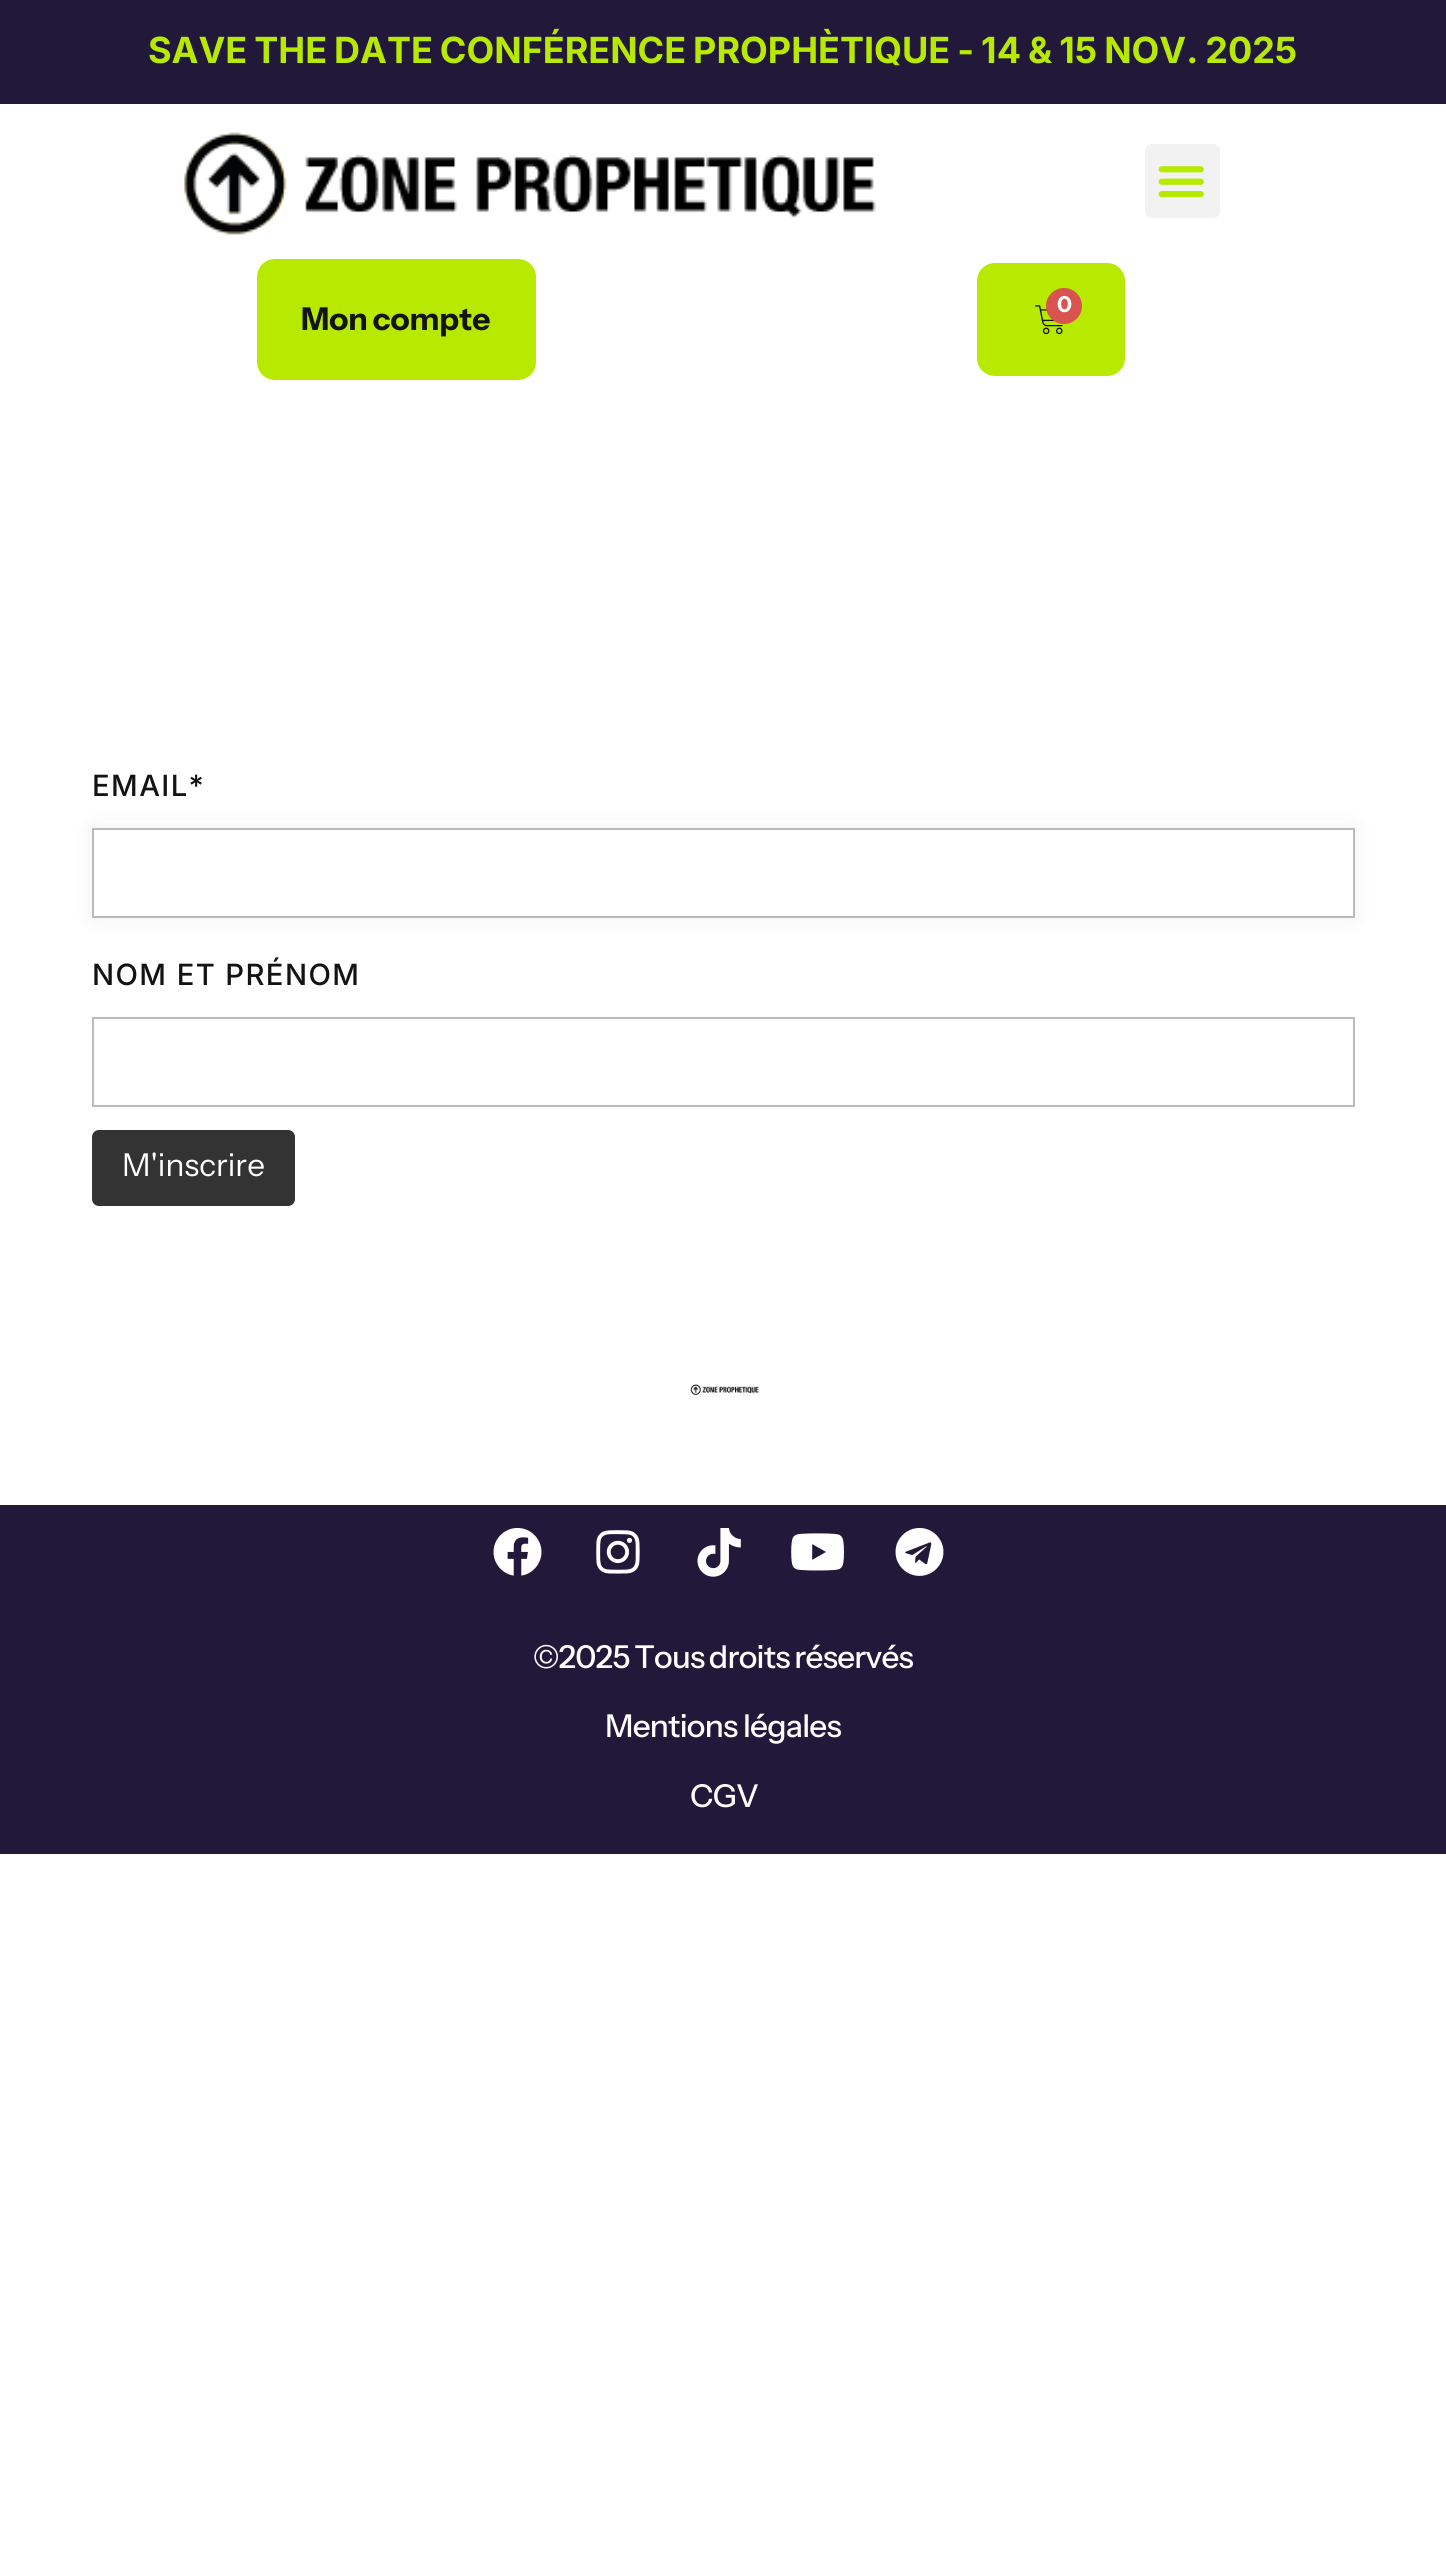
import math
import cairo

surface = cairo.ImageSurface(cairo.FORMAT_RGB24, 1446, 2573)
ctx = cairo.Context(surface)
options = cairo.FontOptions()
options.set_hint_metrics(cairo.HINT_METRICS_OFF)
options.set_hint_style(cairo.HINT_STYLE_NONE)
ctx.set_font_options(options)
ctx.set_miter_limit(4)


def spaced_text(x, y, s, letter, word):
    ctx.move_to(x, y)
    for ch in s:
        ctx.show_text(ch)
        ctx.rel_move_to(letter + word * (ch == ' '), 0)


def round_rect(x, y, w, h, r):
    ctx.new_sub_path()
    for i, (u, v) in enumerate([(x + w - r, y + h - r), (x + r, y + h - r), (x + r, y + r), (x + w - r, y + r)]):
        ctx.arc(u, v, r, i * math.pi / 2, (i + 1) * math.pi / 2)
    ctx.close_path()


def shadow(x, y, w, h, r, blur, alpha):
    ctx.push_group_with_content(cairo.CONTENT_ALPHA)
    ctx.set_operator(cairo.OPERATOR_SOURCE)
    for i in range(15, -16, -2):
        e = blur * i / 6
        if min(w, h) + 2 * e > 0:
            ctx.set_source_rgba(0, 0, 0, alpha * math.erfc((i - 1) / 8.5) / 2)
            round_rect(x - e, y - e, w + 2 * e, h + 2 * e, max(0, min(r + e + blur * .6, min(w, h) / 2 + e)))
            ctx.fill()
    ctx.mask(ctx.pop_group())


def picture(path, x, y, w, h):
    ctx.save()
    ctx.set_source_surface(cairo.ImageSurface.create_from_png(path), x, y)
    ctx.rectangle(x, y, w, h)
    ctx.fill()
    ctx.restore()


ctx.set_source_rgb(1, 1, 1)
ctx.paint()
ctx.set_source_rgb(0.133, 0.094, 0.227)
ctx.rectangle(0, 0, 1446, 104)
ctx.fill()
ctx.select_font_face("Inter", cairo.FONT_SLANT_NORMAL, cairo.FONT_WEIGHT_BOLD)
ctx.set_font_size(36)
ctx.set_source_rgb(0.722, 0.914, 0)
spaced_text(148, 63, "SAVE THE DATE CONFÉRENCE PROPHÈTIQUE - 14 & 15 NOV. 2025", 0, -1.5)
picture("img1.png", 184, 132, 692, 103)
ctx.set_source_rgb(0.949, 0.949, 0.949)
round_rect(1145, 144, 75, 74, 7)
ctx.fill()
picture("img2.png", 1158, 166, 46, 32)
ctx.set_source_rgb(0.722, 0.914, 0)
round_rect(977, 263, 148, 113, 18)
ctx.fill()
picture("img3.png", 1035, 305, 28, 30)
ctx.set_source_rgb(0.851, 0.325, 0.31)
ctx.arc(1064, 306, 18, 0, 2 * math.pi)
ctx.fill()
ctx.select_font_face("Instrument Sans", cairo.FONT_SLANT_NORMAL, cairo.FONT_WEIGHT_BOLD)
ctx.set_font_size(22)
ctx.set_source_rgb(1, 1, 1)
ctx.move_to(1057, 312)
ctx.show_text("0")
ctx.set_source_rgb(0.722, 0.914, 0)
round_rect(257, 259, 279, 121, 18)
ctx.fill()
ctx.set_font_size(31.5)
ctx.set_source_rgb(0.078, 0.078, 0.078)
spaced_text(301, 330, "Mon compte", 0, -1)
ctx.set_source_rgb(0, 0, 0)
shadow(92, 828, 1263, 90, 0, 11, 0.06)
ctx.select_font_face("Inter Medium")
ctx.set_font_size(29.25)
ctx.set_source_rgb(0.078, 0.078, 0.078)
spaced_text(92, 796, "EMAIL*", 1.4, 0)
ctx.set_source_rgb(1, 1, 1)
ctx.rectangle(93, 829, 1261, 88)
ctx.fill_preserve()
ctx.set_source_rgb(0.733, 0.733, 0.733)
ctx.stroke()
ctx.set_source_rgb(0.078, 0.078, 0.078)
spaced_text(92, 985, "NOM ET PRÉNOM", 1.4, 0)
ctx.rectangle(93, 1018, 1261, 88)
ctx.set_source_rgb(0.733, 0.733, 0.733)
ctx.stroke()
ctx.set_source_rgb(0.2, 0.2, 0.2)
round_rect(92, 1130, 203, 76, 7)
ctx.fill()
ctx.select_font_face("Instrument Sans")
ctx.set_font_size(31.5)
ctx.set_source_rgb(1, 1, 1)
ctx.move_to(122, 1176)
ctx.show_text("M'inscrire")
picture("img4.png", 690, 1384, 69, 12)
ctx.set_source_rgb(0.133, 0.094, 0.227)
ctx.rectangle(0, 1505, 1446, 349)
ctx.fill()
picture("img5.png", 493, 1528, 49, 48)
picture("img6.png", 596, 1530, 44, 44)
picture("img7.png", 697, 1528, 44, 49)
picture("img8.png", 791, 1533, 53, 38)
picture("img9.png", 895, 1528, 49, 48)
ctx.select_font_face("Instrument Sans Medium")
ctx.set_source_rgb(1, 1, 1)
spaced_text(533, 1668, "©2025 Tous droits réservés", -0.75, -1)
spaced_text(605, 1737, "Mentions légales", -0.75, 0)
spaced_text(690, 1807, "CGV", -0.75, 0)
surface.write_to_png("page.png")
